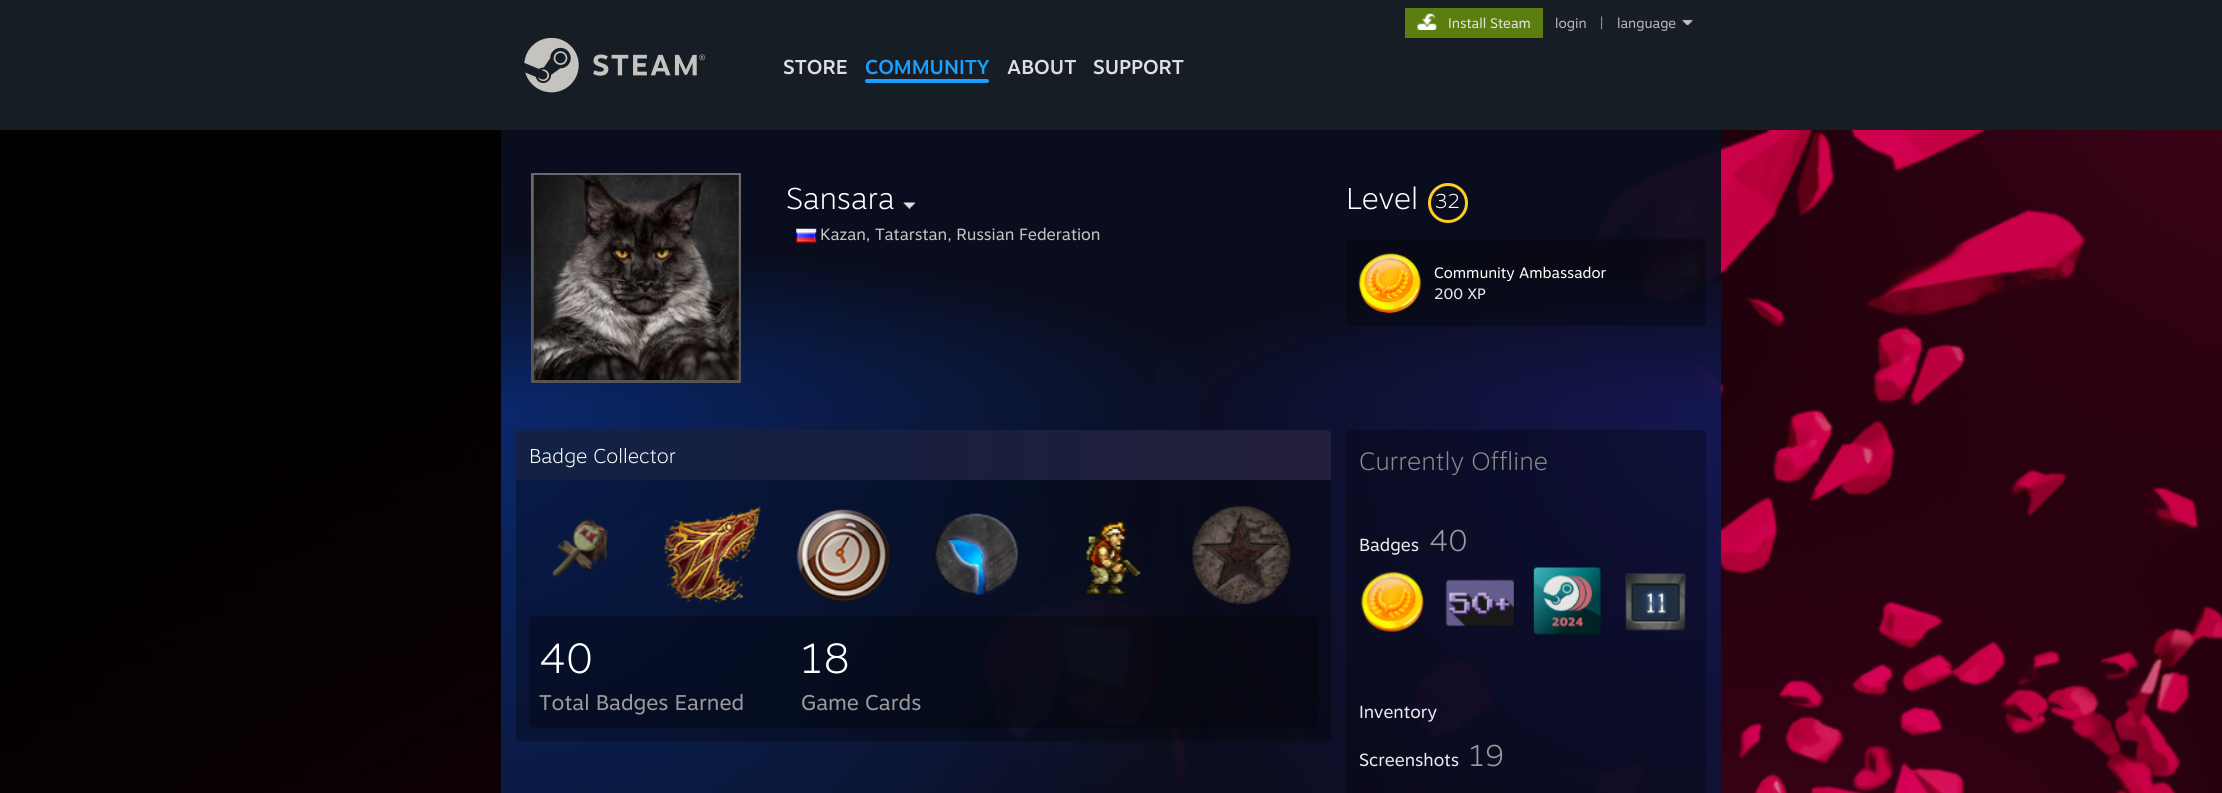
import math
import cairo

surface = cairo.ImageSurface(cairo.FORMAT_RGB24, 2222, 793)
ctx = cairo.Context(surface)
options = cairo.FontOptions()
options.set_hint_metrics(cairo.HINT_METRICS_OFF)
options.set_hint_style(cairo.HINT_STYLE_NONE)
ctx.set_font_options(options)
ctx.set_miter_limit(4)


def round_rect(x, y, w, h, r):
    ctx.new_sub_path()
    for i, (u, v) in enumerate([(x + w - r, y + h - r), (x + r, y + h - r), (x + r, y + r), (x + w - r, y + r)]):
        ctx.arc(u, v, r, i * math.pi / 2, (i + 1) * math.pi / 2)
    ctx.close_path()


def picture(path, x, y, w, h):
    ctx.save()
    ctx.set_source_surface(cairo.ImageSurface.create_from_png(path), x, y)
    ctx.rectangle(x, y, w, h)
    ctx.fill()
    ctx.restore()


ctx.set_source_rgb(0.09, 0.114, 0.145)
ctx.paint()
ctx.set_source_rgb(0.361, 0.494, 0.063)
ctx.rectangle(1405, 8, 138, 30)
ctx.fill()
picture("img1.png", 1417, 13, 20, 17)
ctx.select_font_face("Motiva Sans")
ctx.set_font_size(13.75)
ctx.set_source_rgb(0.898, 0.894, 0.863)
ctx.move_to(1448, 28)
ctx.show_text("Install Steam")
ctx.set_source_rgb(0.722, 0.714, 0.706)
ctx.move_to(1555, 28)
ctx.show_text("login")
ctx.move_to(1600, 28)
ctx.show_text("|")
ctx.move_to(1617, 28)
ctx.show_text("language")
picture("img2.png", 1682, 19, 11, 7)
picture("img3.png", 524, 38, 181, 55)
ctx.select_font_face("Motiva Sans Medium")
ctx.set_font_size(20)
ctx.set_source_rgb(0.863, 0.871, 0.875)
ctx.move_to(783, 74)
ctx.show_text("STORE")
ctx.set_source_rgb(0.102, 0.624, 1)
ctx.move_to(865, 74)
ctx.show_text("COMMUNITY")
round_rect(865, 79, 124, 4, 2)
ctx.fill()
ctx.set_source_rgb(0.863, 0.871, 0.875)
ctx.move_to(1007, 74)
ctx.show_text("ABOUT")
ctx.move_to(1093, 74)
ctx.show_text("SUPPORT")
picture("img4.png", 0, 130, 2222, 663)
ctx.set_source_rgba(0.039, 0.055, 0.125, 0.93)
ctx.rectangle(501, 130, 1220, 280)
ctx.fill()
gradient = cairo.RadialGradient(0, 0, 0, 0, 0, 1)
gradient.set_matrix(cairo.Matrix(1 / 1725, 0, 0, 1 / 396, -1 * 501 / 1725, -1 * 410 / 396))
gradient.add_color_stop_rgba(0, 0.047, 0.333, 0.945, 0.37)
gradient.add_color_stop_rgba(0.43, 0.047, 0.333, 0.945, 0)
ctx.set_source(gradient)
ctx.rectangle(501, 250, 698, 160)
ctx.fill()
gradient = cairo.RadialGradient(0, 0, 0, 0, 0, 1)
gradient.set_matrix(cairo.Matrix(1 / 1220, 0, 0, 1 / 280, -1 * 1721 / 1220, -1 * 410 / 280))
gradient.add_color_stop_rgba(0, 0.2, 0.212, 0.992, 0.23)
gradient.add_color_stop_rgba(0.51, 0.2, 0.212, 0.992, 0)
ctx.set_source(gradient)
ctx.rectangle(1157, 281, 564, 129)
ctx.fill()
gradient = cairo.LinearGradient(636, 173, 636, 383)
gradient.add_color_stop_rgba(0.05, 0.416, 0.416, 0.416, 1)
gradient.add_color_stop_rgba(0.95, 0.333, 0.333, 0.333, 1)
ctx.set_source(gradient)
ctx.rectangle(531, 173, 210, 210)
ctx.fill()
picture("img5.png", 533, 175, 206, 205)
ctx.select_font_face("Motiva Sans Thin")
ctx.set_font_size(30)
ctx.set_source_rgb(1, 1, 1)
ctx.move_to(786, 209)
ctx.show_text("Sansara")
picture("img6.png", 903, 202, 12, 7)
picture("img7.png", 796, 228, 21, 15)
ctx.select_font_face("Motiva Sans")
ctx.set_font_size(16.25)
ctx.set_source_rgb(0.769, 0.769, 0.769)
ctx.move_to(820, 240)
ctx.show_text("Kazan, Tatarstan, Russian Federation")
ctx.select_font_face("Motiva Sans Thin")
ctx.set_font_size(30)
ctx.set_source_rgb(1, 1, 1)
ctx.move_to(1346, 209)
ctx.show_text("Level")
ctx.new_path()
ctx.arc(1448, 203, 18.5, 0, 2 * math.pi)
ctx.set_source_rgb(0.996, 0.8, 0.137)
ctx.set_line_width(3)
ctx.stroke()
ctx.set_font_size(20)
ctx.set_source_rgb(1, 1, 1)
ctx.move_to(1435, 208)
ctx.show_text("32")
ctx.set_source_rgba(0, 0, 0, 0.3)
round_rect(1346, 239, 360, 87, 4)
ctx.fill()
picture("img8.png", 1358, 252, 64, 62)
ctx.select_font_face("Motiva Sans")
ctx.set_font_size(15)
ctx.set_source_rgb(1, 1, 1)
ctx.move_to(1434, 278)
ctx.show_text("Community Ambassador")
ctx.set_source_rgb(0.922, 0.922, 0.922)
ctx.move_to(1434, 299)
ctx.show_text("200 XP")
ctx.set_source_rgba(0.039, 0.055, 0.125, 0.93)
ctx.rectangle(501, 410, 1220, 383)
ctx.fill()
gradient = cairo.RadialGradient(0, 0, 0, 0, 0, 1)
gradient.set_matrix(cairo.Matrix(1 / 1725, 0, 0, 1 / 1796, -1 * 501 / 1725, -1 * 410 / 1796))
gradient.add_color_stop_rgba(0, 0.047, 0.333, 0.945, 0.37)
gradient.add_color_stop_rgba(0.43, 0.047, 0.333, 0.945, 0)
ctx.set_source(gradient)
ctx.rectangle(501, 410, 698, 383)
ctx.fill()
gradient = cairo.RadialGradient(0, 0, 0, 0, 0, 1)
gradient.set_matrix(cairo.Matrix(1 / 1220, 0, 0, 1 / 1270, -1 * 1721 / 1220, -1 * 410 / 1270))
gradient.add_color_stop_rgba(0, 0.2, 0.212, 0.992, 0.23)
gradient.add_color_stop_rgba(0.51, 0.2, 0.212, 0.992, 0)
ctx.set_source(gradient)
ctx.rectangle(1157, 410, 564, 383)
ctx.fill()
ctx.set_source_rgba(0, 0, 0, 0.3)
round_rect(516, 430, 815, 311, 4)
ctx.fill()
gradient = cairo.LinearGradient(516, 455, 1331, 455)
gradient.add_color_stop_rgba(0, 0.078, 0.129, 0.267, 0.93)
gradient.add_color_stop_rgba(0.9, 0.133, 0.125, 0.239, 0.93)
ctx.set_source(gradient)
ctx.new_path()
ctx.move_to(520, 430)
ctx.line_to(1327, 430)
ctx.curve_to(1329, 430, 1331, 432, 1331, 434)
ctx.line_to(1331, 480)
ctx.line_to(516, 480)
ctx.line_to(516, 434)
ctx.curve_to(516, 432, 518, 430, 520, 430)
ctx.close_path()
ctx.fill()
ctx.select_font_face("Motiva Sans Thin")
ctx.set_font_size(20)
ctx.set_source_rgb(1, 1, 1)
ctx.move_to(529, 463)
ctx.show_text("Badge Collector")
picture("img9.png", 551, 518, 57, 60)
picture("img10.png", 663, 506, 98, 98)
picture("img11.png", 796, 508, 96, 95)
picture("img12.png", 933, 513, 85, 83)
picture("img13.png", 1084, 521, 58, 74)
picture("img14.png", 1192, 506, 99, 98)
ctx.set_source_rgba(0, 0, 0, 0.3)
round_rect(529, 616, 790, 112, 6)
ctx.fill()
ctx.set_font_size(42)
ctx.set_source_rgb(1, 1, 1)
ctx.move_to(539, 673)
ctx.show_text("40")
ctx.select_font_face("Motiva Sans")
ctx.set_font_size(21.25)
ctx.set_source_rgb(0.608, 0.608, 0.608)
ctx.move_to(539, 710)
ctx.show_text("Total Badges Earned")
ctx.select_font_face("Motiva Sans Thin")
ctx.set_font_size(42)
ctx.set_source_rgb(1, 1, 1)
ctx.move_to(801, 673)
ctx.show_text("18")
ctx.select_font_face("Motiva Sans")
ctx.set_font_size(21.25)
ctx.set_source_rgb(0.608, 0.608, 0.608)
ctx.move_to(801, 710)
ctx.show_text("Game Cards")
ctx.set_source_rgba(0, 0, 0, 0.3)
round_rect(1346, 430, 360, 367, 4)
ctx.fill()
ctx.select_font_face("Motiva Sans Thin")
ctx.set_font_size(25)
ctx.set_source_rgb(0.537, 0.537, 0.537)
ctx.move_to(1359, 470)
ctx.show_text("Currently Offline")
ctx.select_font_face("Motiva Sans")
ctx.set_font_size(17.5)
ctx.set_source_rgb(0.922, 0.922, 0.922)
ctx.move_to(1359, 551)
ctx.show_text("Badges")
ctx.select_font_face("Motiva Sans Thin")
ctx.set_font_size(30)
ctx.set_source_rgb(0.608, 0.608, 0.608)
ctx.move_to(1429, 551)
ctx.show_text("40")
picture("img15.png", 1360, 571, 64, 62)
picture("img16.png", 1445, 579, 69, 48)
picture("img17.png", 1533, 567, 69, 68)
picture("img18.png", 1625, 573, 61, 58)
ctx.select_font_face("Motiva Sans")
ctx.set_font_size(17.5)
ctx.set_source_rgb(0.922, 0.922, 0.922)
ctx.move_to(1359, 718)
ctx.show_text("Inventory")
ctx.move_to(1359, 766)
ctx.show_text("Screenshots")
ctx.select_font_face("Motiva Sans Thin")
ctx.set_font_size(30)
ctx.set_source_rgb(0.608, 0.608, 0.608)
ctx.move_to(1469, 766)
ctx.show_text("19")
surface.write_to_png("page.png")
